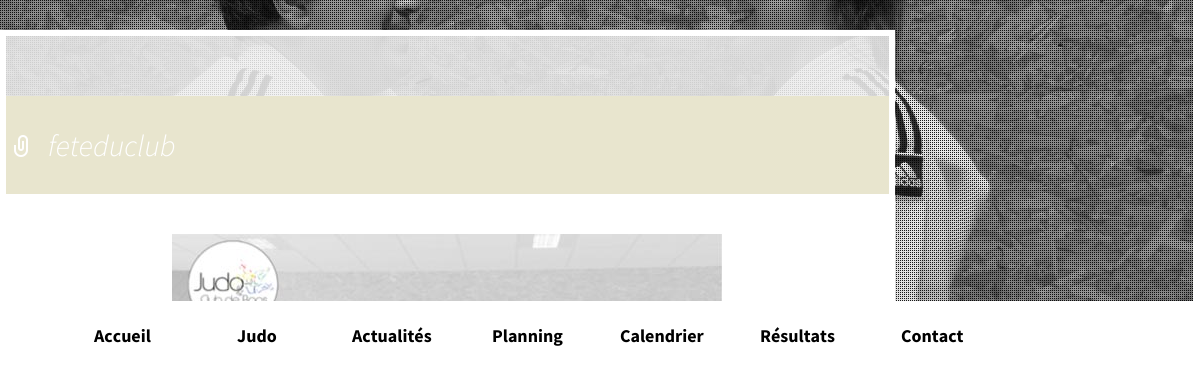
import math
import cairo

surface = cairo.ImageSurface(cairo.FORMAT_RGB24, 1193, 371)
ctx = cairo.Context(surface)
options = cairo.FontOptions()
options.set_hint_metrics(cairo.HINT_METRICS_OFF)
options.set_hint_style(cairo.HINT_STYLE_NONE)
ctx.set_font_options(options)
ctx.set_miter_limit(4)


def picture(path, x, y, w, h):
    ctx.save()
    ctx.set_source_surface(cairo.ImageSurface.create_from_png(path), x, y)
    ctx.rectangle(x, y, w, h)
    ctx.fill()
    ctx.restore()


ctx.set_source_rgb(1, 1, 1)
ctx.paint()
picture("img1.png", 0, 0, 1193, 301)
picture("img2.png", 0, 0, 1193, 301)
ctx.set_source_rgba(0.941, 0.941, 0.941, 0.85)
ctx.rectangle(6, 36, 883, 60)
ctx.fill()
ctx.rectangle(3, 33, 889, 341)
ctx.set_source_rgb(1, 1, 1)
ctx.set_line_width(6)
ctx.stroke()
ctx.set_source_rgb(0.91, 0.898, 0.808)
ctx.rectangle(6, 96, 883, 98)
ctx.fill()
picture("img3.png", 14, 135, 14, 22)
ctx.select_font_face("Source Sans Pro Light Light", cairo.FONT_SLANT_ITALIC)
ctx.set_font_size(30)
ctx.set_source_rgb(1, 1, 1)
ctx.move_to(48, 156)
ctx.show_text("feteduclub")
ctx.rectangle(6, 194, 883, 107)
ctx.fill()
picture("img4.png", 172, 234, 550, 67)
ctx.select_font_face("Source Sans Pro", cairo.FONT_SLANT_NORMAL, cairo.FONT_WEIGHT_BOLD)
ctx.set_font_size(18)
ctx.set_source_rgb(0, 0, 0)
ctx.move_to(94, 342)
ctx.show_text("Accueil")
ctx.move_to(237, 342)
ctx.show_text("Judo")
ctx.move_to(352, 342)
ctx.show_text("Actualités")
ctx.move_to(492, 342)
ctx.show_text("Planning")
ctx.move_to(620, 342)
ctx.show_text("Calendrier")
ctx.move_to(760, 342)
ctx.show_text("Résultats")
ctx.move_to(901, 342)
ctx.show_text("Contact")
surface.write_to_png("page.png")
